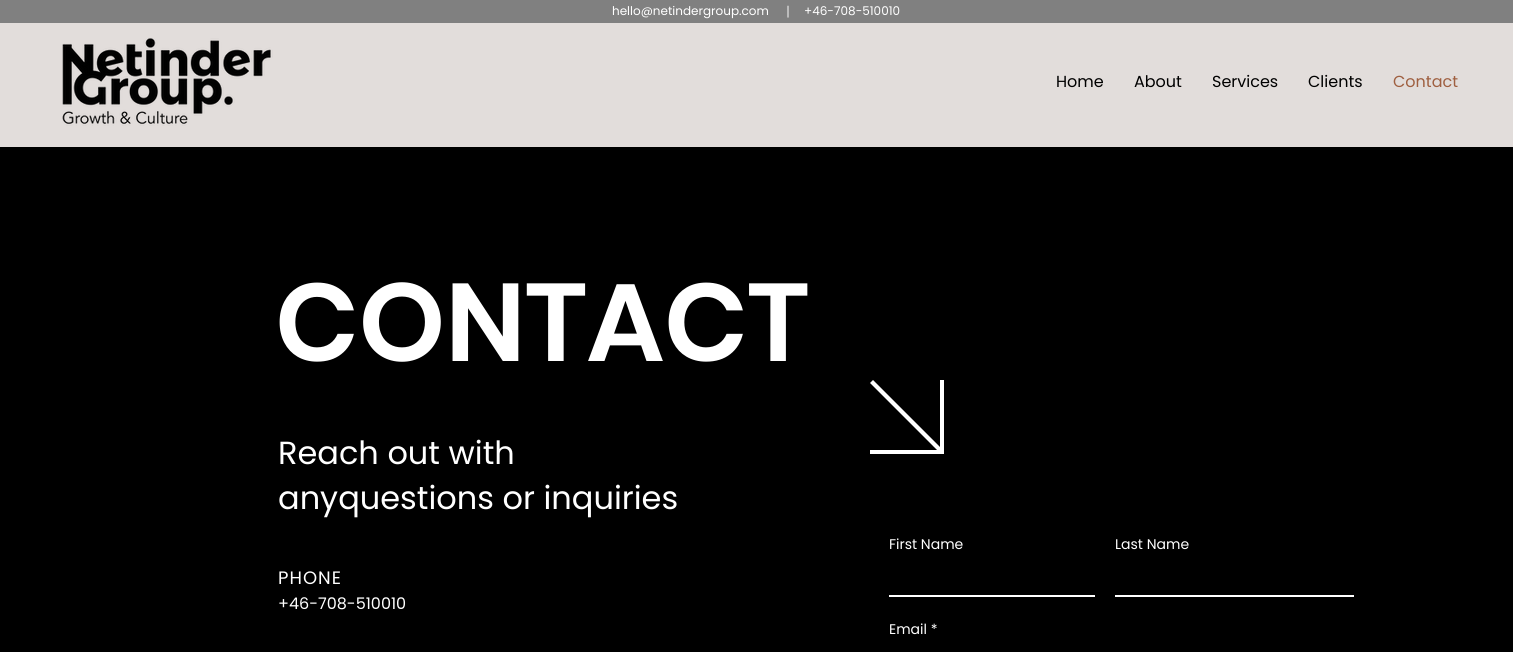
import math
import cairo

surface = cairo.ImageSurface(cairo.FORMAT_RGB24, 1513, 652)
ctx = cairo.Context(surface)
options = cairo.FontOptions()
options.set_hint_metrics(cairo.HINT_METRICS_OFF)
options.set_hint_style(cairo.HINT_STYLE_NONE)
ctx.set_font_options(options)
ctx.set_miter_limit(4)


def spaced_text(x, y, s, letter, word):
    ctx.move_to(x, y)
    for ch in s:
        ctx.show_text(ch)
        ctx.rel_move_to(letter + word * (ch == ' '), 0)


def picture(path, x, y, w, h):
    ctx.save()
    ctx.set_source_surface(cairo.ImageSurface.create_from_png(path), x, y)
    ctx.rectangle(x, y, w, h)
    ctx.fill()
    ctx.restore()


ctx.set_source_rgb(0, 0, 0)
ctx.paint()
ctx.set_source_rgb(0.502, 0.502, 0.502)
ctx.rectangle(0, 0, 1513, 23)
ctx.fill()
ctx.select_font_face("Poppins")
ctx.set_font_size(12)
ctx.set_source_rgb(1, 1, 1)
ctx.move_to(612, 15)
ctx.show_text("hello@netindergroup.com")
ctx.select_font_face("DejaVu Sans")
ctx.move_to(785, 15)
ctx.show_text("∣")
ctx.select_font_face("Poppins")
ctx.move_to(804, 15)
ctx.show_text("+46-708-510010")
ctx.set_source_rgb(0.886, 0.867, 0.859)
ctx.rectangle(0, 23, 1513, 124)
ctx.fill()
picture("img1.png", 62, 38, 211, 88)
ctx.set_font_size(16)
ctx.set_source_rgb(0, 0, 0)
ctx.move_to(1056, 87)
ctx.show_text("Home")
ctx.move_to(1134, 87)
ctx.show_text("About")
ctx.move_to(1212, 87)
ctx.show_text("Services")
ctx.move_to(1308, 87)
ctx.show_text("Clients")
ctx.set_source_rgb(0.624, 0.373, 0.251)
ctx.move_to(1393, 87)
ctx.show_text("Contact")
ctx.select_font_face("Poppins SemiBold")
ctx.set_font_size(110)
ctx.set_source_rgb(1, 1, 1)
ctx.move_to(275, 361)
ctx.show_text("CONTACT")
ctx.select_font_face("Poppins")
ctx.set_font_size(32)
ctx.move_to(278, 464)
ctx.show_text("Reach out with")
ctx.move_to(278, 509)
ctx.show_text("anyquestions or inquiries")
ctx.set_font_size(18)
spaced_text(278, 584, "PHONE", 1, 0)
ctx.set_font_size(16)
ctx.move_to(278, 609)
ctx.show_text("+46-708-510010")
ctx.new_path()
ctx.move_to(870, 450)
ctx.line_to(937, 450)
ctx.line_to(870, 383)
ctx.line_to(873, 380)
ctx.line_to(940, 447)
ctx.line_to(940, 380)
ctx.line_to(944, 380)
ctx.line_to(944, 454)
ctx.line_to(870, 454)
ctx.close_path()
ctx.fill()
ctx.set_font_size(14)
ctx.move_to(889, 549)
ctx.show_text("First Name")
ctx.rectangle(889, 595, 206, 2)
ctx.fill()
ctx.move_to(1115, 549)
ctx.show_text("Last Name")
ctx.rectangle(1115, 595, 239, 2)
ctx.fill()
ctx.move_to(889, 634)
ctx.show_text("Email *")
surface.write_to_png("page.png")
